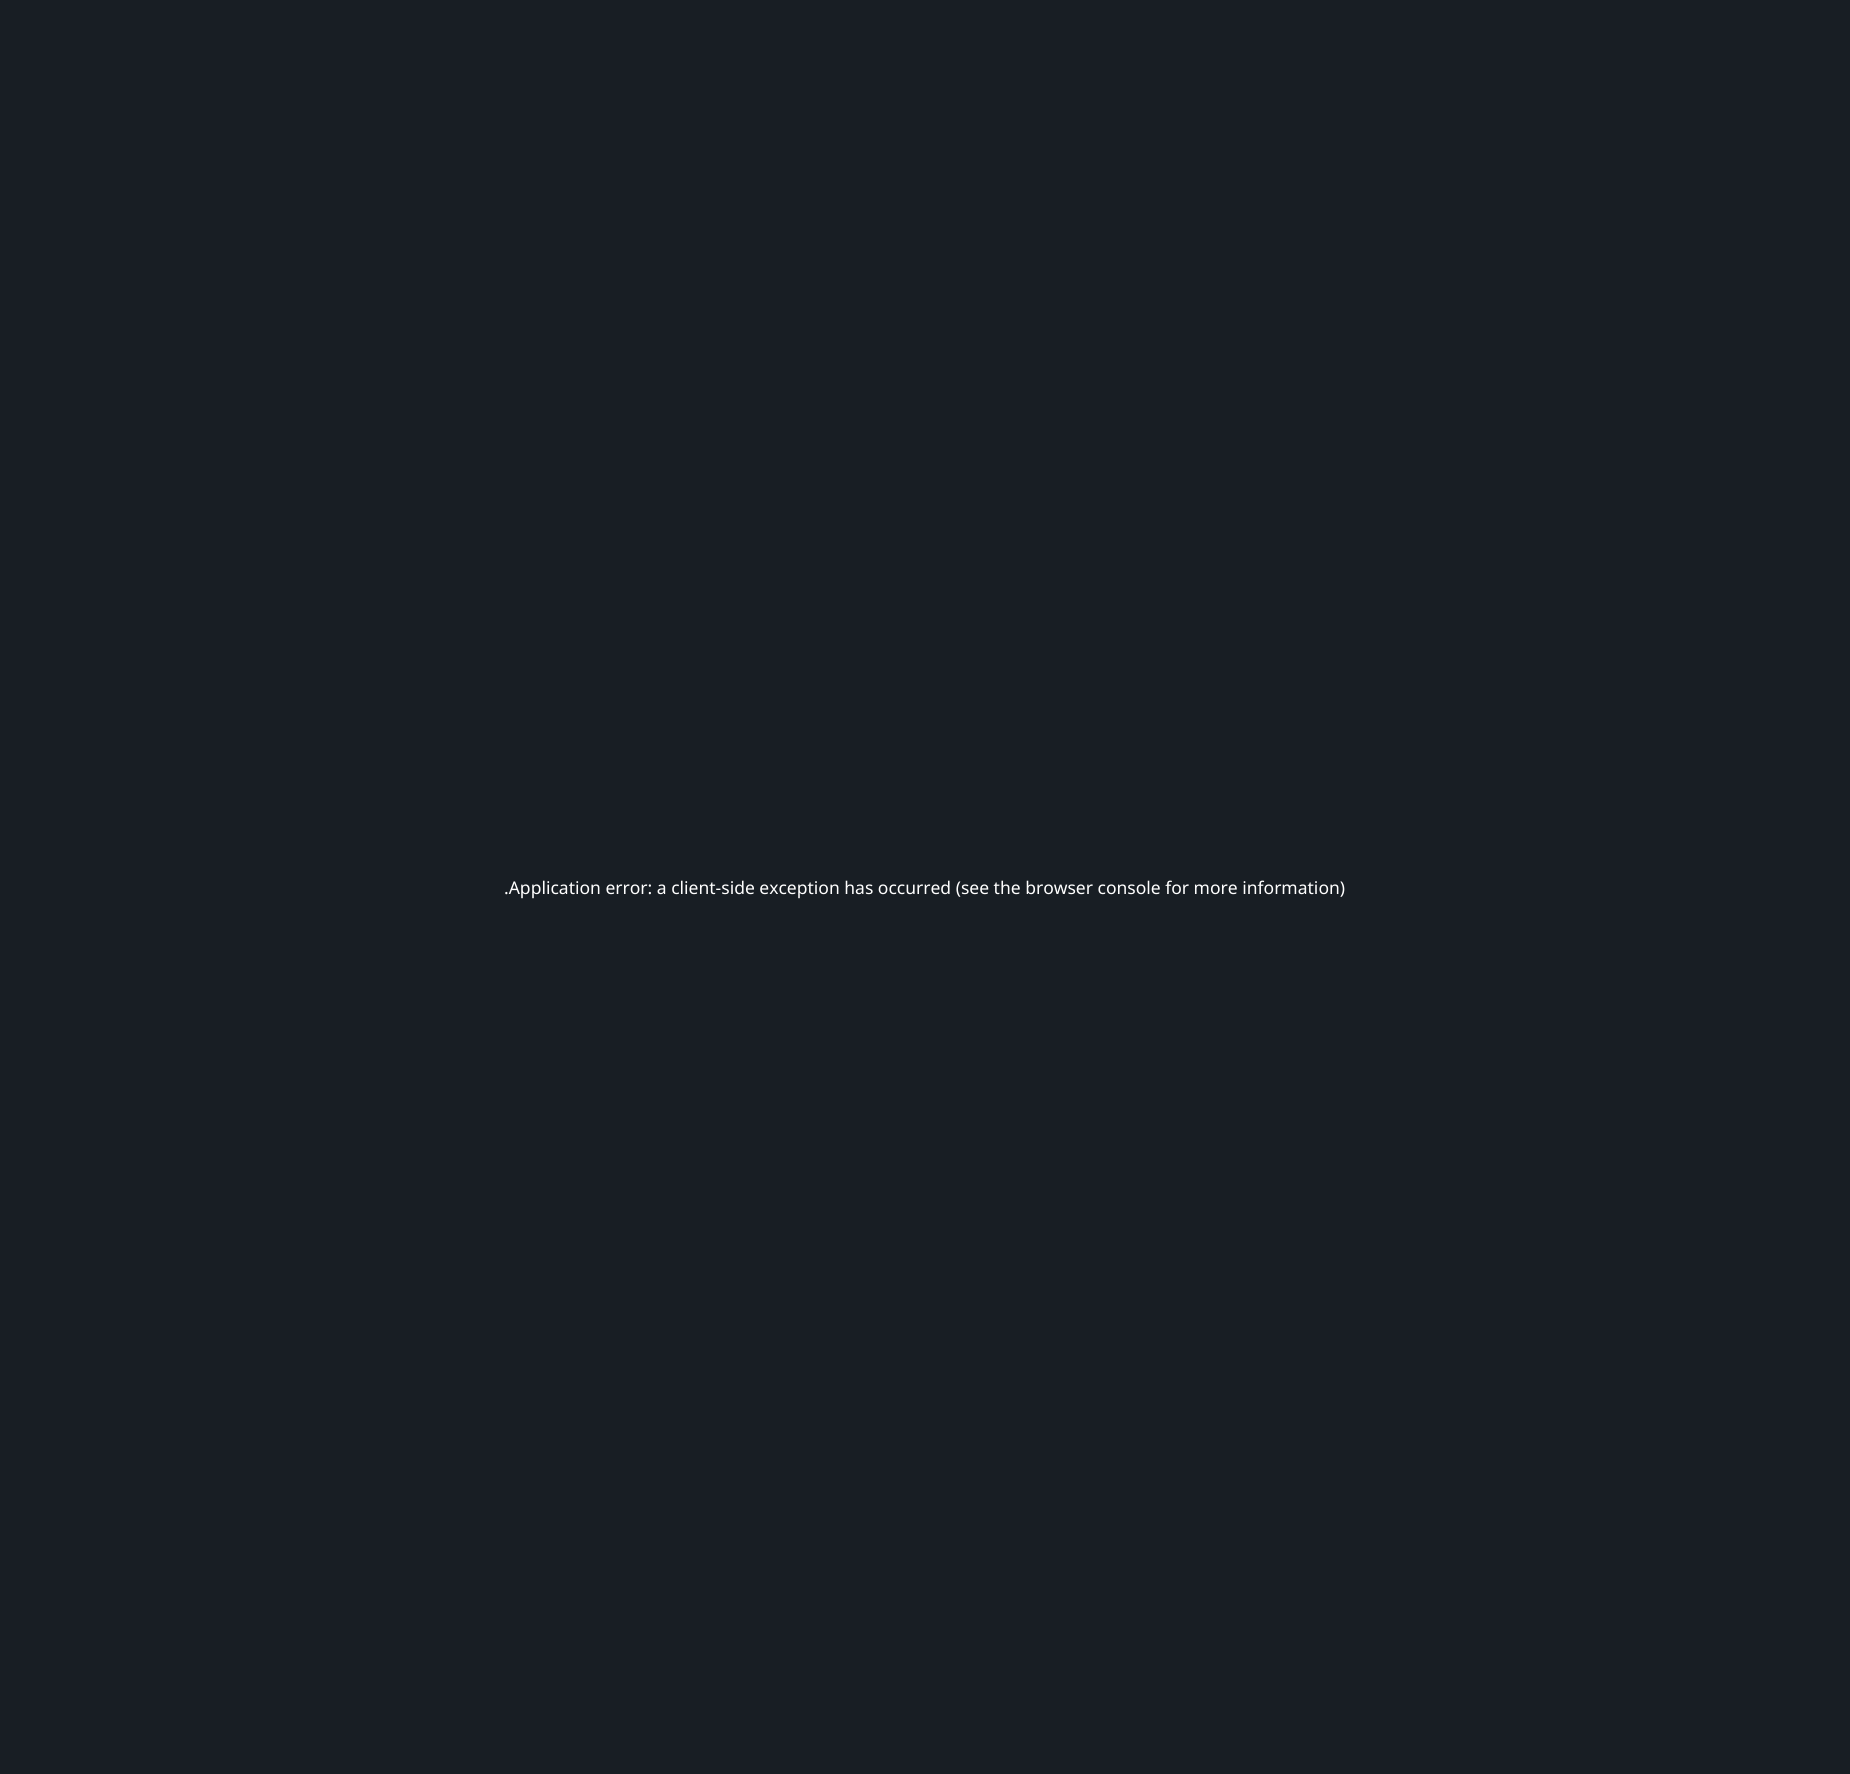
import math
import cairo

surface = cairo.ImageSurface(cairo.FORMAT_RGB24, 1850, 1774)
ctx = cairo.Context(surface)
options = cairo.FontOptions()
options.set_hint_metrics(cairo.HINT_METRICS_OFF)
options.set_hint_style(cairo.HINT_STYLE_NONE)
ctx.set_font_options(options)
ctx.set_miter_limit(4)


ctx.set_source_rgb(0.094, 0.118, 0.141)
ctx.paint()
ctx.select_font_face("Noto Sans")
ctx.set_font_size(17.5)
ctx.set_source_rgb(1, 1, 1)
ctx.move_to(504, 894)
ctx.show_text(".Application error: a client-side exception has occurred (see the browser console for more information)")
surface.write_to_png("page.png")
